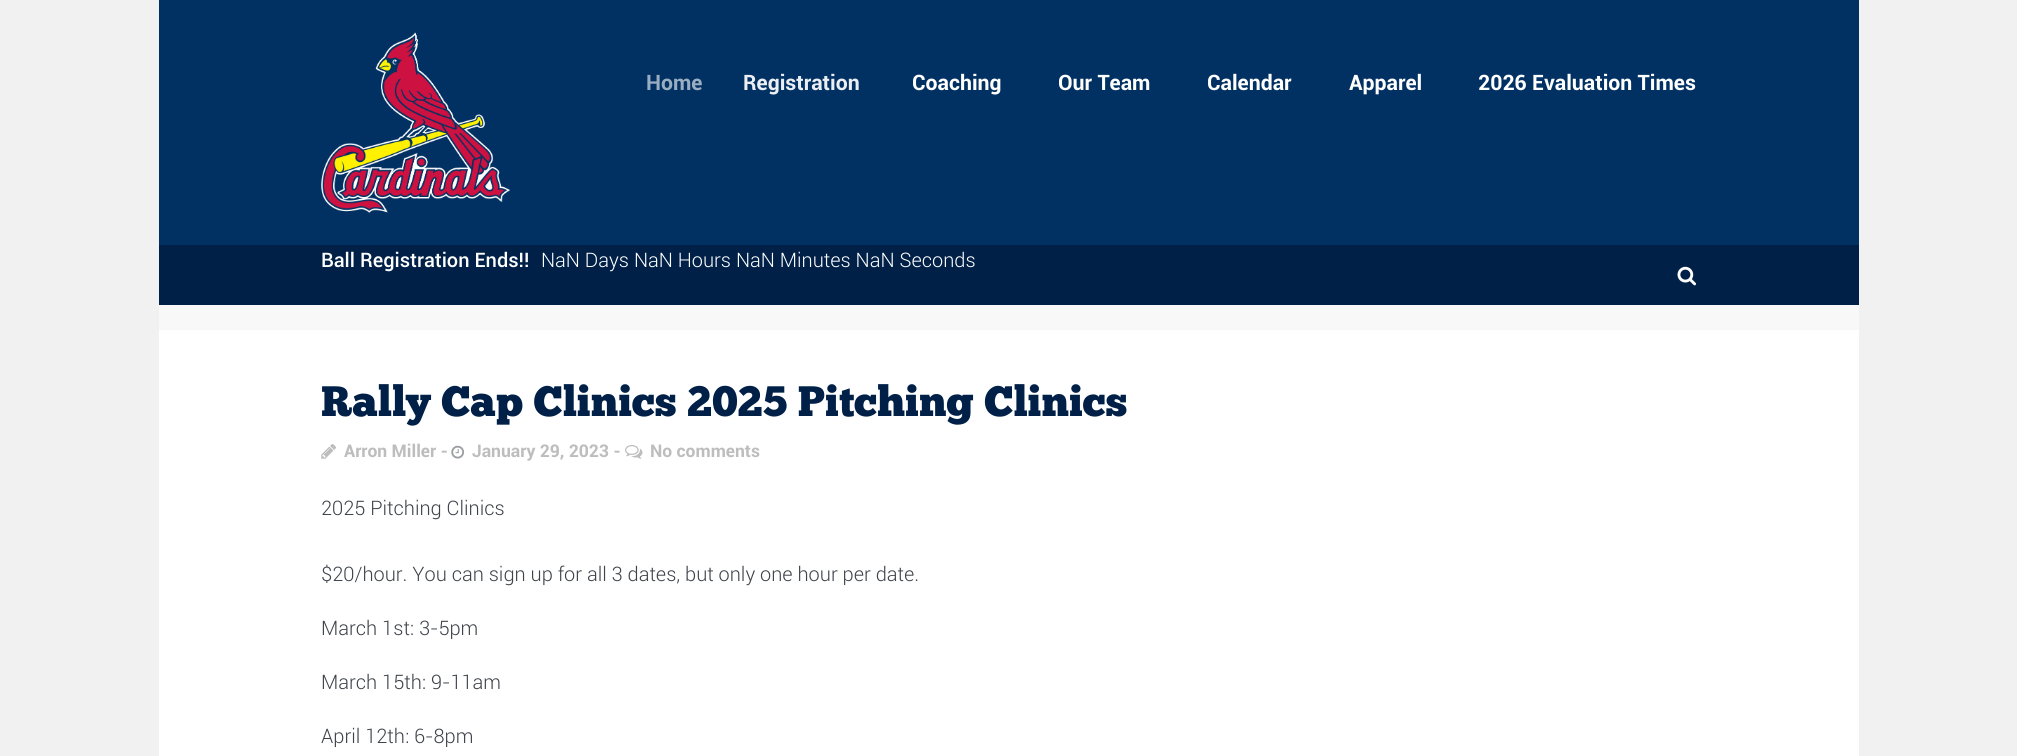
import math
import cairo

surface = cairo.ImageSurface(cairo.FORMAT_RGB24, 2017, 756)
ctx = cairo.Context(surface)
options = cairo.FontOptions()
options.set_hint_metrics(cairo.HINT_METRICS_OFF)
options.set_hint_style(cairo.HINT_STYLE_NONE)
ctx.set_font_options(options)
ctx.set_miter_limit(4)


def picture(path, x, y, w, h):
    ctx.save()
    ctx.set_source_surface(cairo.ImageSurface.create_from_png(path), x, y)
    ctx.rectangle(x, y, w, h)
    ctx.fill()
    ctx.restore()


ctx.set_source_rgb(0.945, 0.945, 0.945)
ctx.paint()
ctx.set_source_rgb(0.004, 0.192, 0.384)
ctx.rectangle(159, 0, 1700, 245)
ctx.fill()
picture("img1.png", 321, 32, 189, 181)
ctx.select_font_face("Roboto", cairo.FONT_SLANT_NORMAL, cairo.FONT_WEIGHT_BOLD)
ctx.set_font_size(21.25)
ctx.set_source_rgb(0.604, 0.678, 0.757)
ctx.move_to(646, 90)
ctx.show_text("Home")
ctx.set_source_rgb(0.918, 0.933, 0.949)
ctx.move_to(743, 90)
ctx.show_text("Registration")
ctx.set_source_rgb(1, 1, 1)
ctx.move_to(912, 90)
ctx.show_text("Coaching")
ctx.move_to(1058, 90)
ctx.show_text("Our Team")
ctx.move_to(1207, 90)
ctx.show_text("Calendar")
ctx.move_to(1349, 90)
ctx.show_text("Apparel")
ctx.move_to(1478, 90)
ctx.show_text("2026 Evaluation Times")
ctx.set_source_rgb(0, 0.125, 0.278)
ctx.rectangle(159, 245, 1700, 60)
ctx.fill()
ctx.select_font_face("Roboto Medium")
ctx.set_font_size(20)
ctx.set_source_rgb(1, 1, 1)
ctx.move_to(321, 267)
ctx.show_text("Ball Registration Ends!!")
ctx.select_font_face("Roboto Light")
ctx.move_to(541, 267)
ctx.show_text("NaN Days NaN Hours NaN Minutes NaN Seconds")
picture("img2.png", 1677, 266, 19, 20)
ctx.set_source_rgb(0.969, 0.969, 0.969)
ctx.rectangle(159, 305, 1700, 25)
ctx.fill()
ctx.set_source_rgb(1, 1, 1)
ctx.rectangle(159, 330, 1700, 426)
ctx.fill()
ctx.select_font_face("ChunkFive")
ctx.set_font_size(42.5)
ctx.set_source_rgb(0, 0.125, 0.278)
ctx.move_to(321, 416)
ctx.show_text("Rally Cap Clinics 2025 Pitching Clinics")
picture("img3.png", 321, 444, 15, 15)
ctx.select_font_face("Roboto", cairo.FONT_SLANT_NORMAL, cairo.FONT_WEIGHT_BOLD)
ctx.set_font_size(17.5)
ctx.set_source_rgb(0.741, 0.741, 0.741)
ctx.move_to(344, 457)
ctx.show_text("Arron Miller -")
picture("img4.png", 451, 445, 14, 14)
ctx.move_to(472, 457)
ctx.show_text("January 29, 2023 -")
picture("img5.png", 625, 445, 18, 14)
ctx.move_to(650, 457)
ctx.show_text("No comments")
ctx.select_font_face("Roboto Light")
ctx.set_font_size(20)
ctx.set_source_rgb(0.239, 0.263, 0.286)
ctx.move_to(321, 515)
ctx.show_text("2025 Pitching Clinics")
ctx.move_to(321, 581)
ctx.show_text("$20/hour. You can sign up for all 3 dates, but only one hour per date.")
ctx.move_to(321, 635)
ctx.show_text("March 1st: 3-5pm")
ctx.move_to(321, 689)
ctx.show_text("March 15th: 9-11am")
ctx.move_to(321, 743)
ctx.show_text("April 12th: 6-8pm")
surface.write_to_png("page.png")
